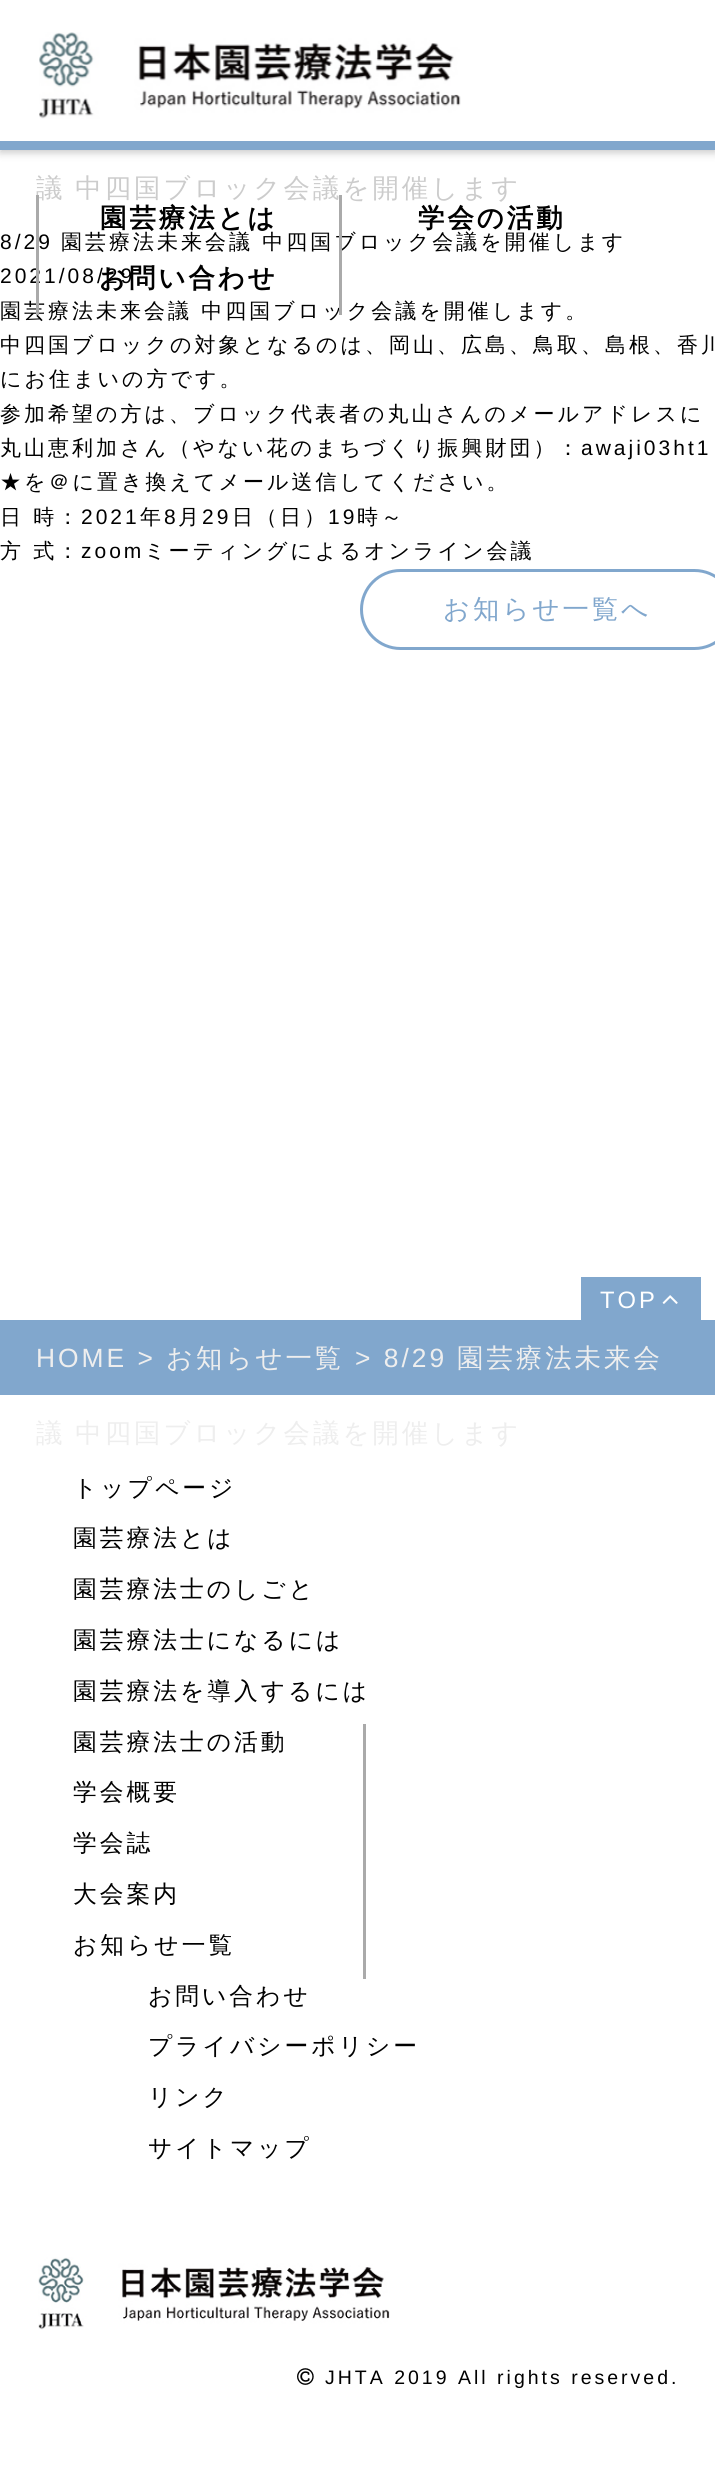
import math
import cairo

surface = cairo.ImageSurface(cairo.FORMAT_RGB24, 715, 2483)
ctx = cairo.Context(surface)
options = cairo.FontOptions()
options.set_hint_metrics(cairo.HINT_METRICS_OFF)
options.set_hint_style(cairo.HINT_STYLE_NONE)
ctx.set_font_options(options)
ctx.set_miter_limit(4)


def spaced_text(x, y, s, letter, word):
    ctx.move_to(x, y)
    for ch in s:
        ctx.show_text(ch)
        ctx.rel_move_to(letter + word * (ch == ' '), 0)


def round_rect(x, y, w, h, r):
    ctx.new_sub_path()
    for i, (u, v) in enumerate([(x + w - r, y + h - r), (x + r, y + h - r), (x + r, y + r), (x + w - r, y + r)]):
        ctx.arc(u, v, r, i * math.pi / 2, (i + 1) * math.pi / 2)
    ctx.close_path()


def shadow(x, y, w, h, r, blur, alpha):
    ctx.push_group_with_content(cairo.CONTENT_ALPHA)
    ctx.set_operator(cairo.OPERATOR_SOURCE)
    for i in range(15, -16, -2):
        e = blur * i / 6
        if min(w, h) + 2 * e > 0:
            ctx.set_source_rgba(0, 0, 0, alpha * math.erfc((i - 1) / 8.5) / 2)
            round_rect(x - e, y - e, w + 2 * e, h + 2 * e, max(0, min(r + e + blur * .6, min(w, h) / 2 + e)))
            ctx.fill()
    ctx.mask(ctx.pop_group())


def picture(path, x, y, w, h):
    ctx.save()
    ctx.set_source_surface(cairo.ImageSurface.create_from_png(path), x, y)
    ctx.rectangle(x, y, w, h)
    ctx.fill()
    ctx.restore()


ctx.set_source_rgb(1, 1, 1)
ctx.paint()
ctx.select_font_face("WenQuanYi Zen Hei Medium")
ctx.set_font_size(26.4)
ctx.set_source_rgb(0.8, 0.8, 0.8)
spaced_text(36, 197, "議 中四国ブロック会議を開催します", 3, -1)
ctx.set_source_rgb(0, 0, 0)
shadow(0, 3, 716, 150, 0, 4, 0.2)
ctx.set_source_rgb(1, 1, 1)
ctx.rectangle(0, 0, 715, 141)
ctx.fill()
ctx.set_source_rgb(0.506, 0.655, 0.804)
ctx.rectangle(0, 141, 715, 9)
ctx.fill()
picture("img1.png", 39, 32, 422, 87)
ctx.select_font_face("Liberation Sans")
ctx.set_font_size(21)
ctx.set_source_rgb(0, 0, 0)
spaced_text(0, 249, "8/29", 3, 0)
spaced_text(0, 283, "2021/08/29", 3, 0)
ctx.select_font_face("WenQuanYi Zen Hei Medium")
spaced_text(0, 318, "園芸療法未来会議 中四国ブロック会議を開催します。", 3, 0)
ctx.set_source_rgb(0.667, 0.667, 0.667)
ctx.rectangle(36, 195, 3, 120)
ctx.fill()
ctx.select_font_face("WenQuanYi Zen Hei", cairo.FONT_SLANT_NORMAL, cairo.FONT_WEIGHT_BOLD)
ctx.set_font_size(26.4)
ctx.set_source_rgb(0, 0, 0)
spaced_text(100, 227, "園芸療法とは", 3, 0)
ctx.select_font_face("WenQuanYi Zen Hei Medium")
ctx.set_font_size(21)
spaced_text(61, 249, "園芸療法未来会議 中四国ブロック会議を開催します", 3, 0)
ctx.set_source_rgb(0.667, 0.667, 0.667)
ctx.rectangle(339, 195, 3, 120)
ctx.fill()
ctx.select_font_face("WenQuanYi Zen Hei", cairo.FONT_SLANT_NORMAL, cairo.FONT_WEIGHT_BOLD)
ctx.set_font_size(26.4)
ctx.set_source_rgb(0, 0, 0)
spaced_text(418, 227, "学会の活動", 3, 0)
spaced_text(99, 287, "お問い合わせ", 3, 0)
ctx.select_font_face("WenQuanYi Zen Hei Medium")
ctx.set_font_size(21)
spaced_text(0, 352, "中四国ブロックの対象となるのは、岡山、広島、鳥取、島根、香川", 3, 0)
spaced_text(0, 386, "にお住まいの方です。", 3, 0)
spaced_text(0, 421, "参加希望の方は、ブロック代表者の丸山さんのメールアドレスに", 3, 0)
spaced_text(0, 455, "丸山恵利加さん（やない花のまちづくり振興財団）：", 3, 0)
ctx.select_font_face("Liberation Sans")
spaced_text(581, 455, "awaji03ht1", 3, 0)
ctx.select_font_face("WenQuanYi Zen Hei Medium")
spaced_text(0, 489, "★を＠に置き換えてメール送信してください。", 3, 0)
spaced_text(0, 524, "日 時：", 3, 0)
ctx.select_font_face("Liberation Sans")
spaced_text(81, 524, "2021", 3, 0)
ctx.select_font_face("WenQuanYi Zen Hei Medium")
spaced_text(140, 524, "年", 3, 0)
ctx.select_font_face("Liberation Sans")
spaced_text(164, 524, "8", 3, 0)
ctx.select_font_face("WenQuanYi Zen Hei Medium")
spaced_text(178, 524, "月", 3, 0)
ctx.select_font_face("Liberation Sans")
spaced_text(202, 524, "29", 3, 0)
ctx.select_font_face("WenQuanYi Zen Hei Medium")
spaced_text(232, 524, "日（日）", 3, 0)
ctx.select_font_face("Liberation Sans")
spaced_text(328, 524, "19", 3, 0)
ctx.select_font_face("WenQuanYi Zen Hei Medium")
spaced_text(357, 524, "時～", 3, 0)
spaced_text(0, 558, "方 式：", 3, 0)
ctx.select_font_face("Liberation Sans")
spaced_text(81, 558, "zoom", 3, 0)
ctx.select_font_face("WenQuanYi Zen Hei Medium")
spaced_text(144, 558, "ミーティングによるオンライン会議", 3, 0)
round_rect(361.5, 570.5, 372, 78, 39)
ctx.set_source_rgb(0.506, 0.655, 0.804)
ctx.set_line_width(3)
ctx.stroke()
ctx.set_font_size(26.4)
spaced_text(443, 618, "お知らせ一覧へ", 3, 0)
ctx.rectangle(581, 1277, 120, 43)
ctx.fill()
ctx.select_font_face("Liberation Sans")
ctx.set_font_size(23.75)
ctx.set_source_rgb(1, 1, 1)
spaced_text(600, 1308, "TOP", 3, 0)
picture("img2.png", 662, 1295, 16, 9)
ctx.select_font_face("WenQuanYi Zen Hei Medium")
ctx.set_source_rgb(0, 0, 0)
spaced_text(73, 1496, "トップページ", 3, 0)
spaced_text(73, 1546, "園芸療法とは", 3, 0)
spaced_text(73, 1597, "園芸療法士のしごと", 3, 0)
spaced_text(73, 1648, "園芸療法士になるには", 3, 0)
spaced_text(73, 1699, "園芸療法を導入するには", 3, 0)
ctx.set_source_rgb(0.667, 0.667, 0.667)
ctx.rectangle(363, 1724, 3, 255)
ctx.fill()
ctx.set_source_rgb(0, 0, 0)
spaced_text(73, 1750, "園芸療法士の活動", 3, 0)
spaced_text(73, 1800, "学会概要", 3, 0)
spaced_text(73, 1851, "学会誌", 3, 0)
spaced_text(73, 1902, "大会案内", 3, 0)
spaced_text(73, 1953, "お知らせ一覧", 3, 0)
spaced_text(148, 2004, "お問い合わせ", 3, 0)
spaced_text(148, 2054, "プライバシーポリシー", 3, 0)
spaced_text(148, 2105, "リンク", 3, 0)
spaced_text(148, 2156, "サイトマップ", 3, 0)
picture("img3.png", 38, 2257, 352, 73)
picture("img4.png", 297, 2368, 17, 17)
ctx.select_font_face("Liberation Sans")
ctx.set_font_size(19.5)
spaced_text(325, 2384, "JHTA 2019 All rights reserved.", 3, 0)
ctx.set_source_rgb(0.506, 0.655, 0.804)
ctx.rectangle(0, 1320, 715, 75)
ctx.fill()
ctx.set_font_size(26.4)
ctx.set_source_rgb(0.933, 0.933, 0.933)
spaced_text(36, 1367, "HOME >", 3, 0)
ctx.select_font_face("WenQuanYi Zen Hei Medium")
spaced_text(166, 1367, "お知らせ一覧", 3, 0)
ctx.select_font_face("Liberation Sans")
spaced_text(355, 1367, "> 8/29", 3, 0)
ctx.select_font_face("WenQuanYi Zen Hei Medium")
spaced_text(457, 1367, "園芸療法未来会", 3, 0)
spaced_text(36, 1442, "議 中四国ブロック会議を開催します", 3, -1)
surface.write_to_png("page.png")
